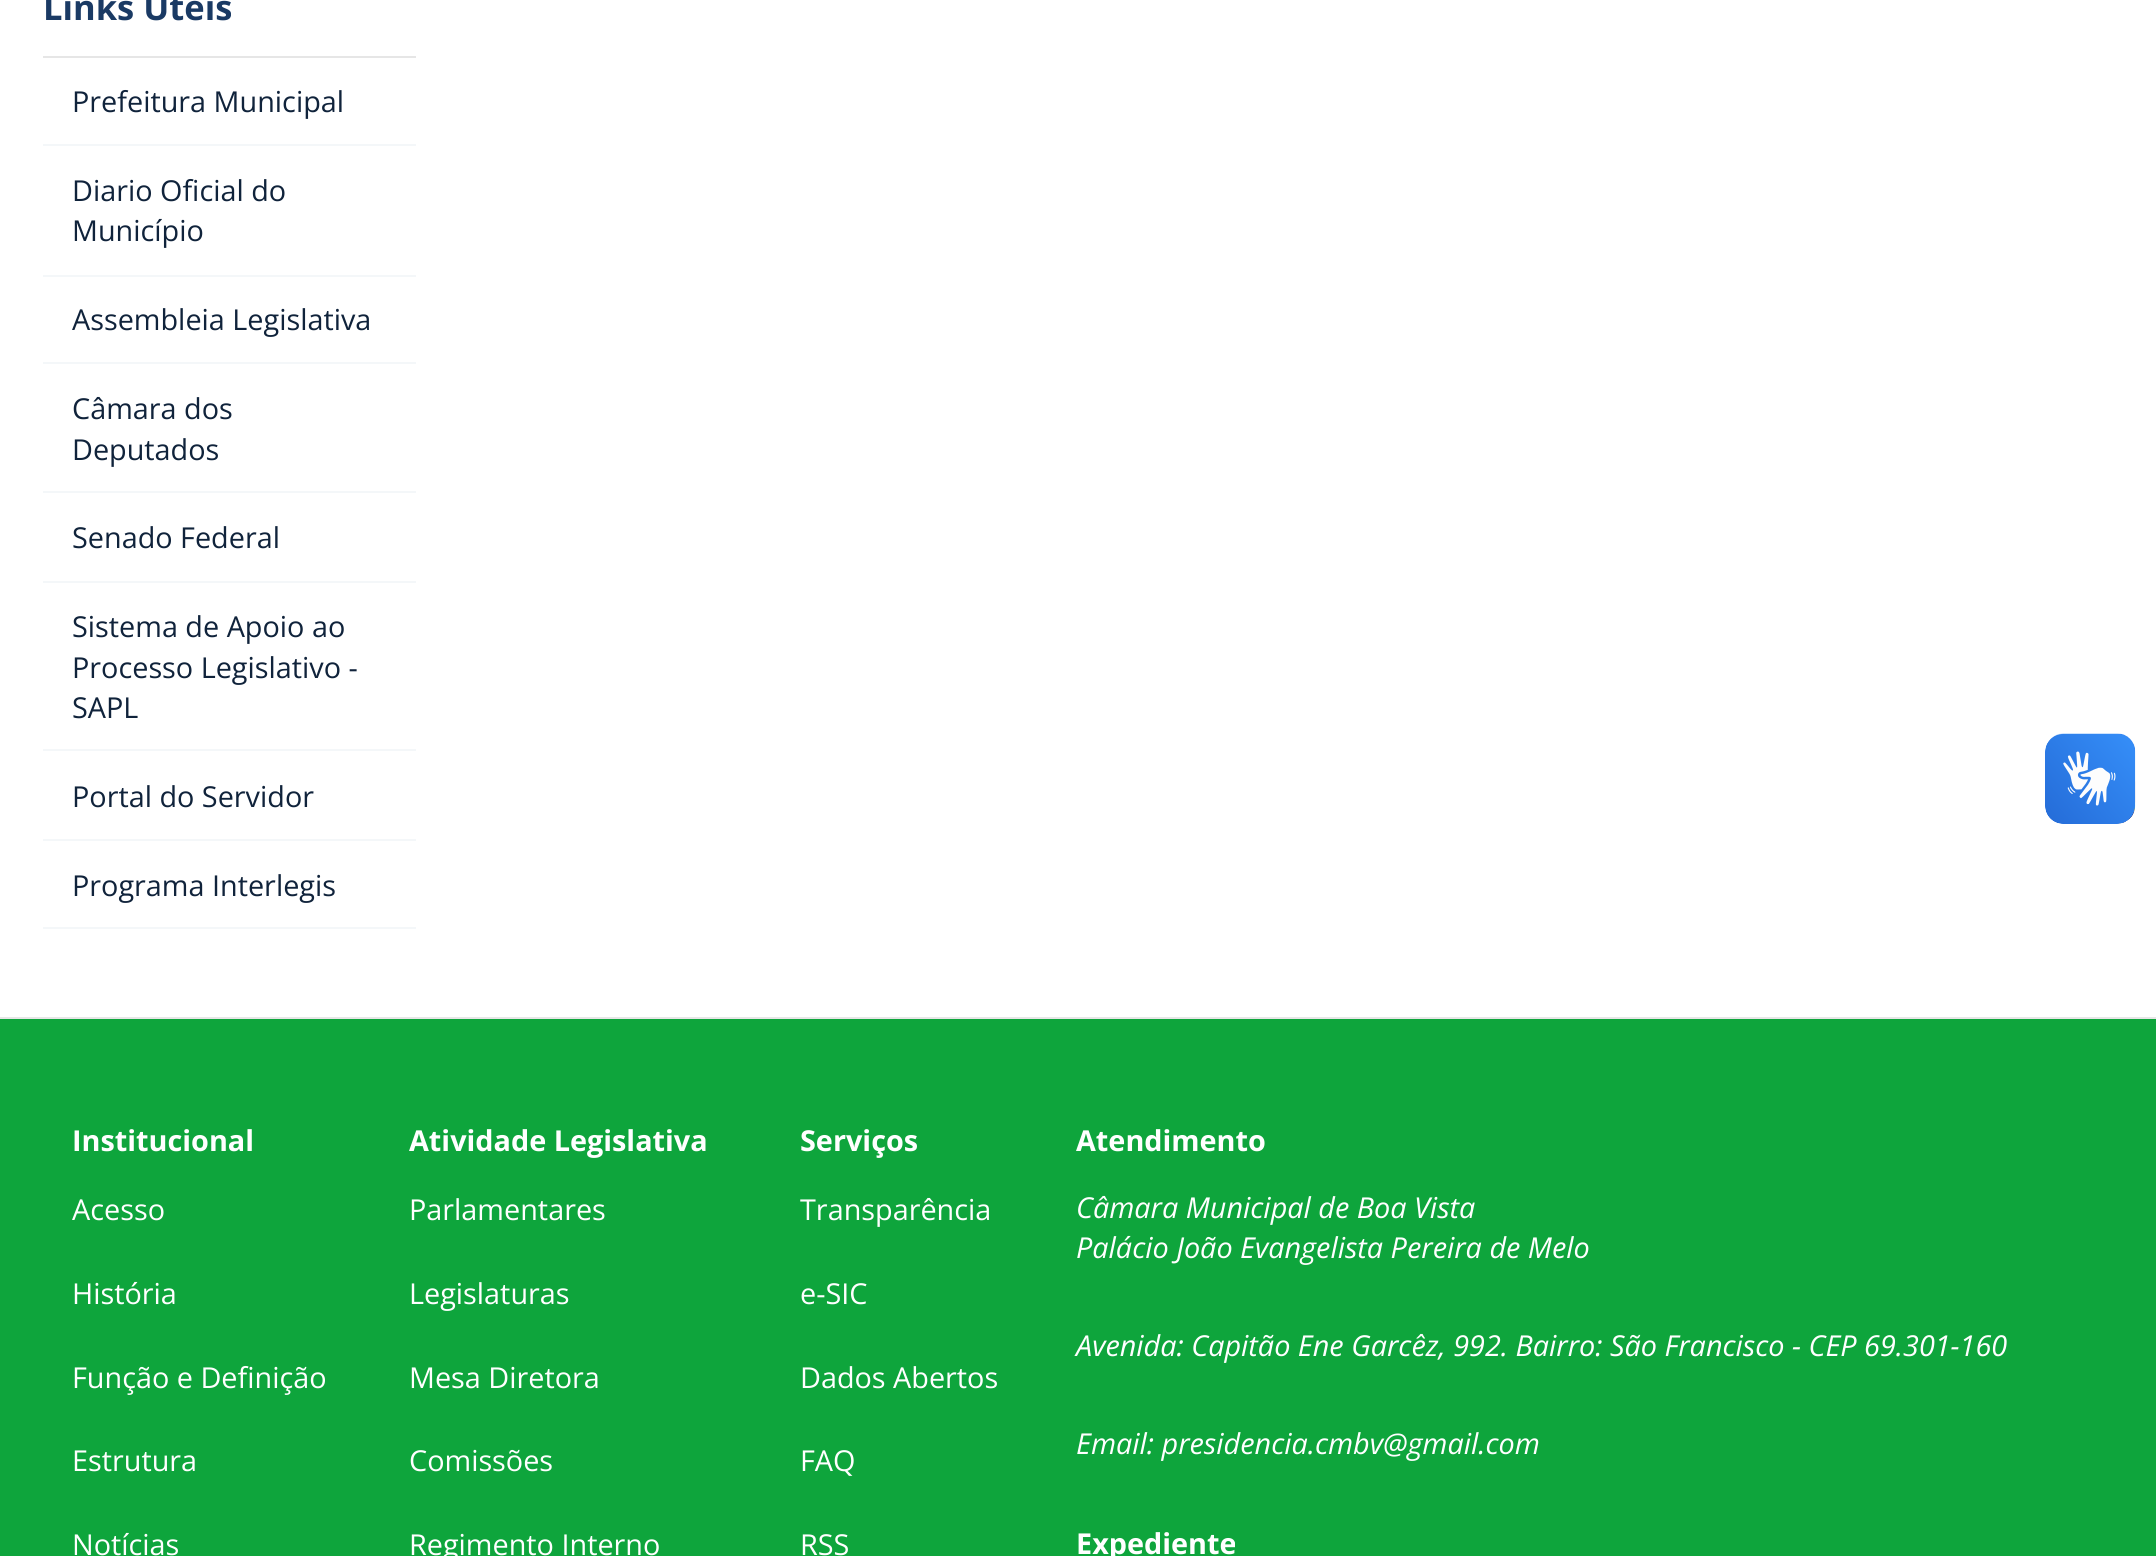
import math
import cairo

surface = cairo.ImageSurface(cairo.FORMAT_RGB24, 2156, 1556)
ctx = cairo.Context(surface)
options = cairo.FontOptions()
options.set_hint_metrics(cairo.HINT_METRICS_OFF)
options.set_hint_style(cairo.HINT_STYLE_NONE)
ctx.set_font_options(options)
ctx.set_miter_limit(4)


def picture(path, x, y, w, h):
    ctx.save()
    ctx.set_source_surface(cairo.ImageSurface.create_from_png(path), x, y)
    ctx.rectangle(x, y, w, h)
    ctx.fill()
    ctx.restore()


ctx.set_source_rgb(1, 1, 1)
ctx.paint()
ctx.set_source_rgb(0.902, 0.902, 0.902)
ctx.rectangle(43, 56, 373, 2)
ctx.fill()
ctx.select_font_face("Open Sans", cairo.FONT_SLANT_NORMAL, cairo.FONT_WEIGHT_BOLD)
ctx.set_font_size(34.5)
ctx.set_source_rgb(0.102, 0.227, 0.392)
ctx.move_to(43, 20)
ctx.show_text("Links Úteis")
ctx.set_source_rgb(0.957, 0.965, 0.976)
ctx.rectangle(43, 144, 373, 2)
ctx.fill()
ctx.select_font_face("Open Sans")
ctx.set_font_size(28.8)
ctx.set_source_rgb(0.063, 0.137, 0.231)
ctx.move_to(72, 112)
ctx.show_text("Prefeitura Municipal")
ctx.set_source_rgb(0.957, 0.965, 0.976)
ctx.rectangle(43, 275, 373, 2)
ctx.fill()
ctx.set_source_rgb(0.063, 0.137, 0.231)
ctx.move_to(72, 201)
ctx.show_text("Diario Oficial do")
ctx.move_to(72, 241)
ctx.show_text("Município")
ctx.set_source_rgb(0.957, 0.965, 0.976)
ctx.rectangle(43, 362, 373, 2)
ctx.fill()
ctx.set_source_rgb(0.063, 0.137, 0.231)
ctx.move_to(72, 330)
ctx.show_text("Assembleia Legislativa")
ctx.set_source_rgb(0.957, 0.965, 0.976)
ctx.rectangle(43, 491, 373, 2)
ctx.fill()
ctx.set_source_rgb(0.063, 0.137, 0.231)
ctx.move_to(72, 419)
ctx.show_text("Câmara dos")
ctx.move_to(72, 460)
ctx.show_text("Deputados")
ctx.set_source_rgb(0.957, 0.965, 0.976)
ctx.rectangle(43, 581, 373, 2)
ctx.fill()
ctx.set_source_rgb(0.063, 0.137, 0.231)
ctx.move_to(72, 548)
ctx.show_text("Senado Federal")
ctx.set_source_rgb(0.957, 0.965, 0.976)
ctx.rectangle(43, 749, 373, 2)
ctx.fill()
ctx.set_source_rgb(0.063, 0.137, 0.231)
ctx.move_to(72, 637)
ctx.show_text("Sistema de Apoio ao")
ctx.move_to(72, 678)
ctx.show_text("Processo Legislativo -")
ctx.move_to(72, 718)
ctx.show_text("SAPL")
ctx.set_source_rgb(0.957, 0.965, 0.976)
ctx.rectangle(43, 839, 373, 2)
ctx.fill()
ctx.set_source_rgb(0.063, 0.137, 0.231)
ctx.move_to(72, 807)
ctx.show_text("Portal do Servidor")
ctx.set_source_rgb(0.957, 0.965, 0.976)
ctx.rectangle(43, 927, 373, 2)
ctx.fill()
ctx.set_source_rgb(0.063, 0.137, 0.231)
ctx.move_to(72, 896)
ctx.show_text("Programa Interlegis")
ctx.set_source_rgb(0.055, 0.647, 0.235)
ctx.rectangle(0, 1019, 2156, 537)
ctx.fill()
ctx.set_source_rgb(0.902, 0.902, 0.902)
ctx.rectangle(0, 1017, 2156, 2)
ctx.fill()
ctx.select_font_face("Open Sans", cairo.FONT_SLANT_NORMAL, cairo.FONT_WEIGHT_BOLD)
ctx.set_source_rgb(1, 1, 1)
ctx.move_to(72, 1151)
ctx.show_text("Institucional")
ctx.move_to(409, 1151)
ctx.show_text("Atividade Legislativa")
ctx.move_to(800, 1151)
ctx.show_text("Serviços")
ctx.move_to(1076, 1151)
ctx.show_text("Atendimento")
ctx.select_font_face("Open Sans")
ctx.move_to(72, 1220)
ctx.show_text("Acesso")
ctx.move_to(72, 1304)
ctx.show_text("História")
ctx.move_to(72, 1388)
ctx.show_text("Função e Definição")
ctx.move_to(72, 1471)
ctx.show_text("Estrutura")
ctx.move_to(72, 1555)
ctx.show_text("Notícias")
ctx.move_to(409, 1220)
ctx.show_text("Parlamentares")
ctx.move_to(409, 1304)
ctx.show_text("Legislaturas")
ctx.move_to(409, 1388)
ctx.show_text("Mesa Diretora")
ctx.move_to(409, 1471)
ctx.show_text("Comissões")
ctx.move_to(409, 1555)
ctx.show_text("Regimento Interno")
ctx.move_to(800, 1220)
ctx.show_text("Transparência")
ctx.move_to(800, 1304)
ctx.show_text("e-SIC")
ctx.move_to(800, 1388)
ctx.show_text("Dados Abertos")
ctx.move_to(800, 1471)
ctx.show_text("FAQ")
ctx.move_to(800, 1555)
ctx.show_text("RSS")
ctx.select_font_face("Open Sans", cairo.FONT_SLANT_ITALIC)
ctx.move_to(1076, 1218)
ctx.show_text("Câmara Municipal de Boa Vista")
ctx.move_to(1076, 1258)
ctx.show_text("Palácio João Evangelista Pereira de Melo")
ctx.move_to(1076, 1356)
ctx.show_text("Avenida: Capitão Ene Garcêz, 992. Bairro: São Francisco - CEP 69.301-160")
ctx.move_to(1076, 1454)
ctx.show_text("Email: presidencia.cmbv@gmail.com")
ctx.select_font_face("Open Sans", cairo.FONT_SLANT_NORMAL, cairo.FONT_WEIGHT_BOLD)
ctx.move_to(1076, 1554)
ctx.show_text("Expediente")
picture("img1.png", 2045, 733, 91, 91)
picture("img2.png", 2045, 734, 90, 90)
surface.write_to_png("page.png")
